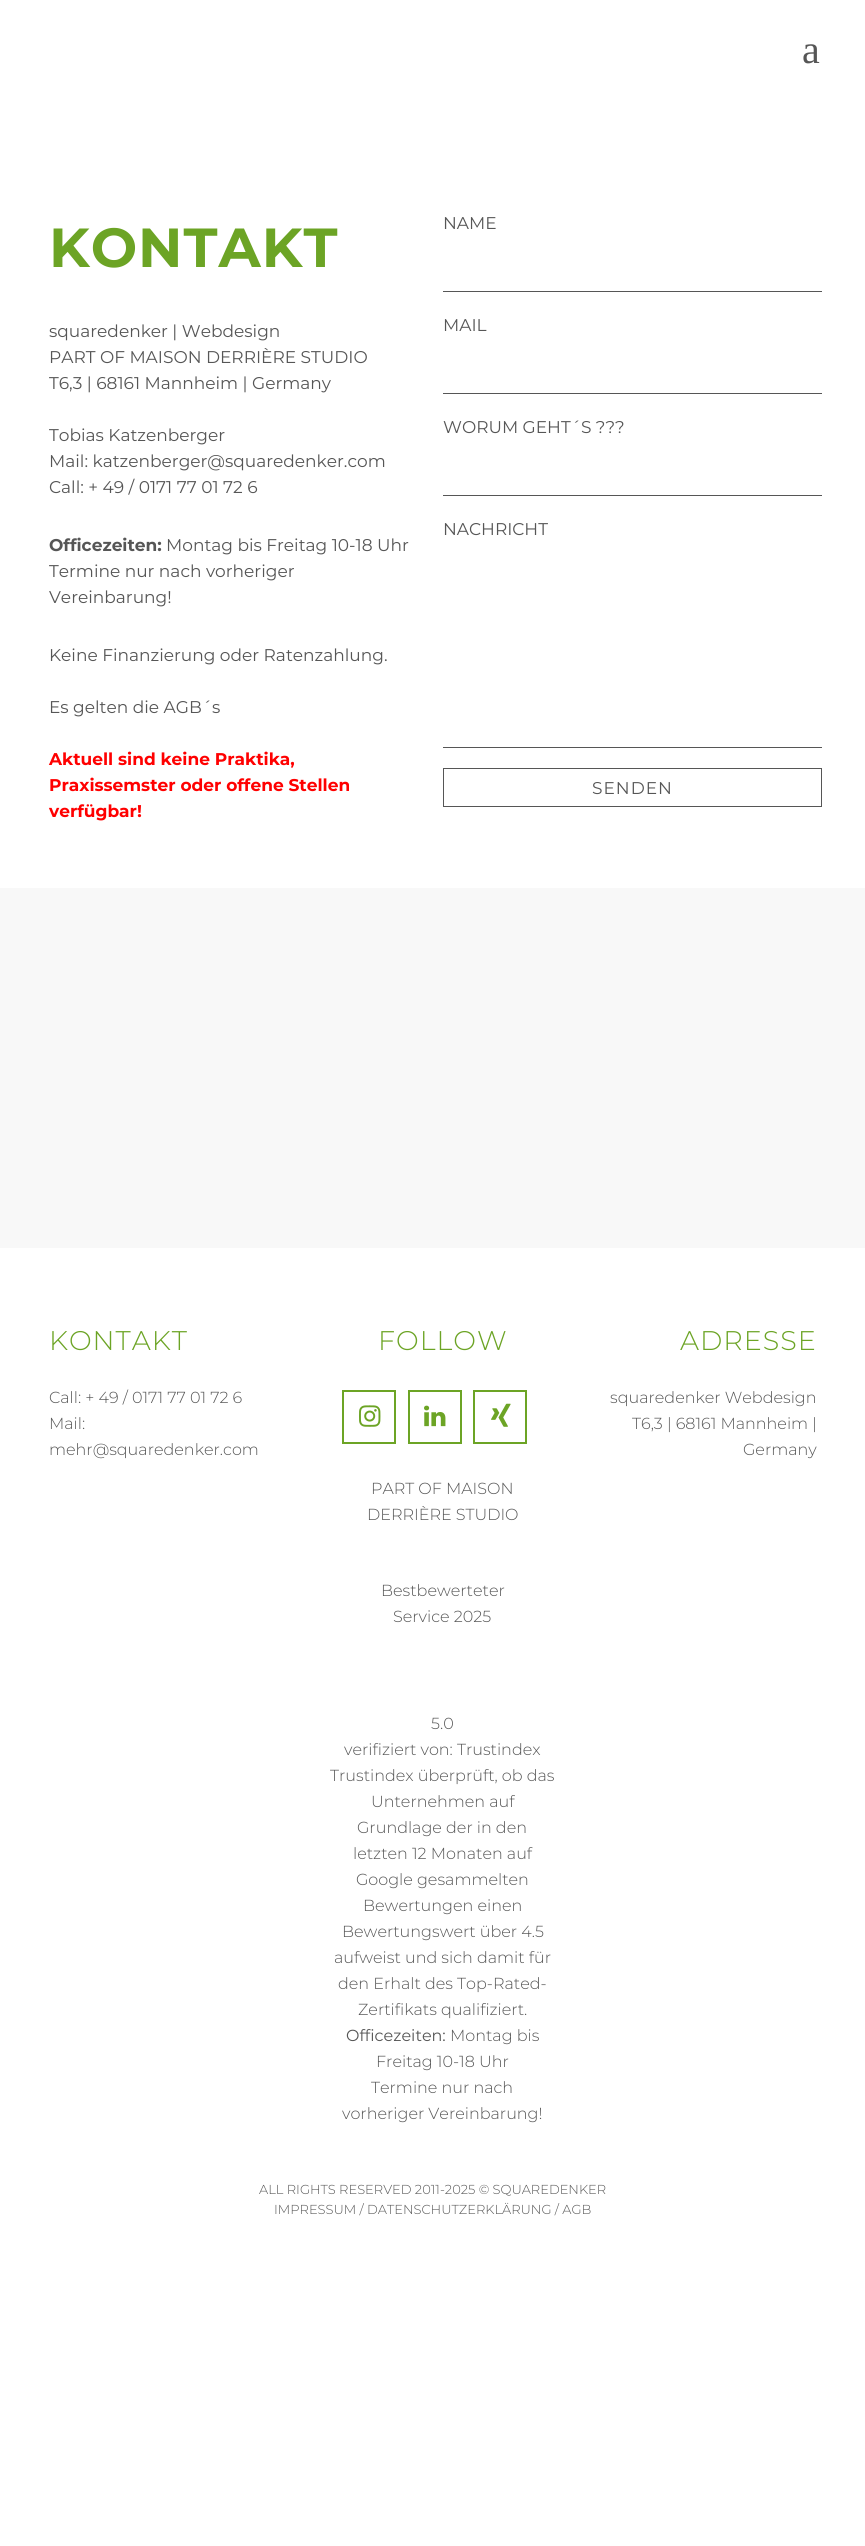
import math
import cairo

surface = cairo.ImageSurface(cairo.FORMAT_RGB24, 865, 2546)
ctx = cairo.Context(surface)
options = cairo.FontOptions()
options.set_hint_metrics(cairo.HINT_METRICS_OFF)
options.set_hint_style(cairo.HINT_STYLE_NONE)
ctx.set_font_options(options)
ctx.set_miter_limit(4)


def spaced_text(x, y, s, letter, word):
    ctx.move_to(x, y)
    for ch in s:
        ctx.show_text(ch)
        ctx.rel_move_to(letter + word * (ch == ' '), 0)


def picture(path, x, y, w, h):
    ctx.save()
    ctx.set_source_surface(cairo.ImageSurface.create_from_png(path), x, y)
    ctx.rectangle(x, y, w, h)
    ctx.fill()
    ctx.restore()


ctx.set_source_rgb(1, 1, 1)
ctx.paint()
ctx.select_font_face("Liberation Serif")
ctx.set_font_size(40)
ctx.set_source_rgb(0.337, 0.337, 0.337)
ctx.move_to(802, 63)
ctx.show_text("a")
ctx.select_font_face("Montserrat", cairo.FONT_SLANT_NORMAL, cairo.FONT_WEIGHT_BOLD)
ctx.set_font_size(55)
ctx.set_source_rgb(0.424, 0.643, 0.145)
spaced_text(49, 267, "KONTAKT", 1, 0)
ctx.select_font_face("Montserrat")
ctx.set_font_size(17)
ctx.set_source_rgb(0.337, 0.337, 0.337)
ctx.move_to(49, 337)
ctx.show_text("squaredenker | Webdesign")
ctx.move_to(49, 363)
ctx.show_text("PART OF MAISON DERRIÈRE STUDIO")
ctx.move_to(49, 389)
ctx.show_text("T6,3 | 68161 Mannheim | Germany")
ctx.move_to(49, 441)
ctx.show_text("Tobias Katzenberger")
ctx.move_to(49, 467)
ctx.show_text("Mail: katzenberger@squaredenker.com")
ctx.move_to(49, 493)
ctx.show_text("Call: + 49 / 0171 77 01 72 6")
ctx.select_font_face("Montserrat", cairo.FONT_SLANT_NORMAL, cairo.FONT_WEIGHT_BOLD)
ctx.move_to(49, 551)
ctx.show_text("Officezeiten:")
ctx.select_font_face("Montserrat")
ctx.move_to(166, 551)
ctx.show_text("Montag bis Freitag 10-18 Uhr")
ctx.move_to(49, 577)
ctx.show_text("Termine nur nach vorheriger")
ctx.move_to(49, 603)
ctx.show_text("Vereinbarung!")
ctx.move_to(49, 661)
ctx.show_text("Keine Finanzierung oder Ratenzahlung.")
ctx.move_to(49, 713)
ctx.show_text("Es gelten die AGB´s")
ctx.select_font_face("Montserrat", cairo.FONT_SLANT_NORMAL, cairo.FONT_WEIGHT_BOLD)
ctx.set_source_rgb(1, 0, 0)
ctx.move_to(49, 765)
ctx.show_text("Aktuell sind keine Praktika,")
ctx.move_to(49, 791)
ctx.show_text("Praxissemster oder offene Stellen")
ctx.move_to(49, 817)
ctx.show_text("verfügbar!")
ctx.select_font_face("Montserrat")
ctx.set_source_rgb(0.337, 0.337, 0.337)
ctx.move_to(443, 229)
ctx.show_text("NAME")
ctx.rectangle(443, 291, 379, 1)
ctx.fill()
ctx.move_to(443, 331)
ctx.show_text("MAIL")
ctx.rectangle(443, 393, 379, 1)
ctx.fill()
ctx.move_to(443, 433)
ctx.show_text("WORUM GEHT´S ???")
ctx.rectangle(443, 495, 379, 1)
ctx.fill()
ctx.move_to(443, 535)
ctx.show_text("NACHRICHT")
ctx.rectangle(443, 747, 379, 1)
ctx.fill()
ctx.rectangle(443.5, 768.5, 378, 38)
ctx.set_line_width(1)
ctx.stroke()
spaced_text(592, 794, "SENDEN", 1, 0)
ctx.set_source_rgb(0.969, 0.969, 0.969)
ctx.rectangle(0, 888, 865, 360)
ctx.fill()
ctx.select_font_face("Montserrat Light")
ctx.set_font_size(27)
ctx.set_source_rgb(0.424, 0.643, 0.145)
spaced_text(49, 1350, "KONTAKT", 1, 0)
ctx.set_font_size(16)
ctx.set_source_rgb(0.337, 0.337, 0.337)
ctx.move_to(49, 1403)
ctx.show_text("Call: + 49 / 0171 77 01 72 6")
ctx.move_to(49, 1429)
ctx.show_text("Mail:")
ctx.move_to(49, 1455)
ctx.show_text("mehr@squaredenker.com")
ctx.set_font_size(27)
ctx.set_source_rgb(0.424, 0.643, 0.145)
spaced_text(378, 1350, "FOLLOW", 1, 0)
ctx.rectangle(343, 1391, 52, 52)
ctx.set_line_width(2)
ctx.stroke()
picture("img1.png", 359, 1405, 22, 22)
ctx.rectangle(409, 1391, 52, 52)
ctx.stroke()
picture("img2.png", 424, 1405, 22, 22)
ctx.rectangle(474, 1391, 52, 52)
ctx.stroke()
picture("img3.png", 491, 1403, 20, 24)
ctx.set_font_size(16)
ctx.set_source_rgb(0.337, 0.337, 0.337)
ctx.move_to(371, 1494)
ctx.show_text("PART OF MAISON")
ctx.move_to(367, 1520)
ctx.show_text("DERRIÈRE STUDIO")
ctx.move_to(381, 1596)
ctx.show_text("Bestbewerteter")
ctx.move_to(393, 1622)
ctx.show_text("Service 2025")
ctx.move_to(431, 1729)
ctx.show_text("5.0")
ctx.move_to(344, 1755)
ctx.show_text("verifiziert von: Trustindex")
ctx.move_to(330, 1781)
ctx.show_text("Trustindex überprüft, ob das")
ctx.move_to(371, 1807)
ctx.show_text("Unternehmen auf")
ctx.move_to(357, 1833)
ctx.show_text("Grundlage der in den")
ctx.move_to(353, 1859)
ctx.show_text("letzten 12 Monaten auf")
ctx.move_to(356, 1885)
ctx.show_text("Google gesammelten")
ctx.move_to(363, 1911)
ctx.show_text("Bewertungen einen")
ctx.move_to(342, 1937)
ctx.show_text("Bewertungswert über 4.5")
ctx.move_to(334, 1963)
ctx.show_text("aufweist und sich damit für")
ctx.move_to(338, 1989)
ctx.show_text("den Erhalt des Top-Rated-")
ctx.move_to(358, 2015)
ctx.show_text("Zertifikats qualifiziert.")
ctx.select_font_face("Montserrat")
ctx.move_to(346, 2041)
ctx.show_text("Officezeiten:")
ctx.select_font_face("Montserrat Light")
ctx.move_to(450, 2041)
ctx.show_text("Montag bis")
ctx.move_to(376, 2067)
ctx.show_text("Freitag 10-18 Uhr")
ctx.move_to(371, 2093)
ctx.show_text("Termine nur nach")
ctx.move_to(342, 2119)
ctx.show_text("vorheriger Vereinbarung!")
ctx.set_font_size(27)
ctx.set_source_rgb(0.424, 0.643, 0.145)
spaced_text(680, 1350, "ADRESSE", 1, 0)
ctx.set_font_size(16)
ctx.set_source_rgb(0.337, 0.337, 0.337)
ctx.move_to(610, 1403)
ctx.show_text("squaredenker Webdesign")
ctx.move_to(632, 1429)
ctx.show_text("T6,3 | 68161 Mannheim |")
ctx.move_to(743, 1455)
ctx.show_text("Germany")
ctx.set_font_size(13)
ctx.move_to(259, 2194)
ctx.show_text("ALL RIGHTS RESERVED 2011-2025 © SQUAREDENKER")
ctx.move_to(274, 2214)
ctx.show_text("IMPRESSUM / DATENSCHUTZERKLÄRUNG / AGB")
surface.write_to_png("page.png")
